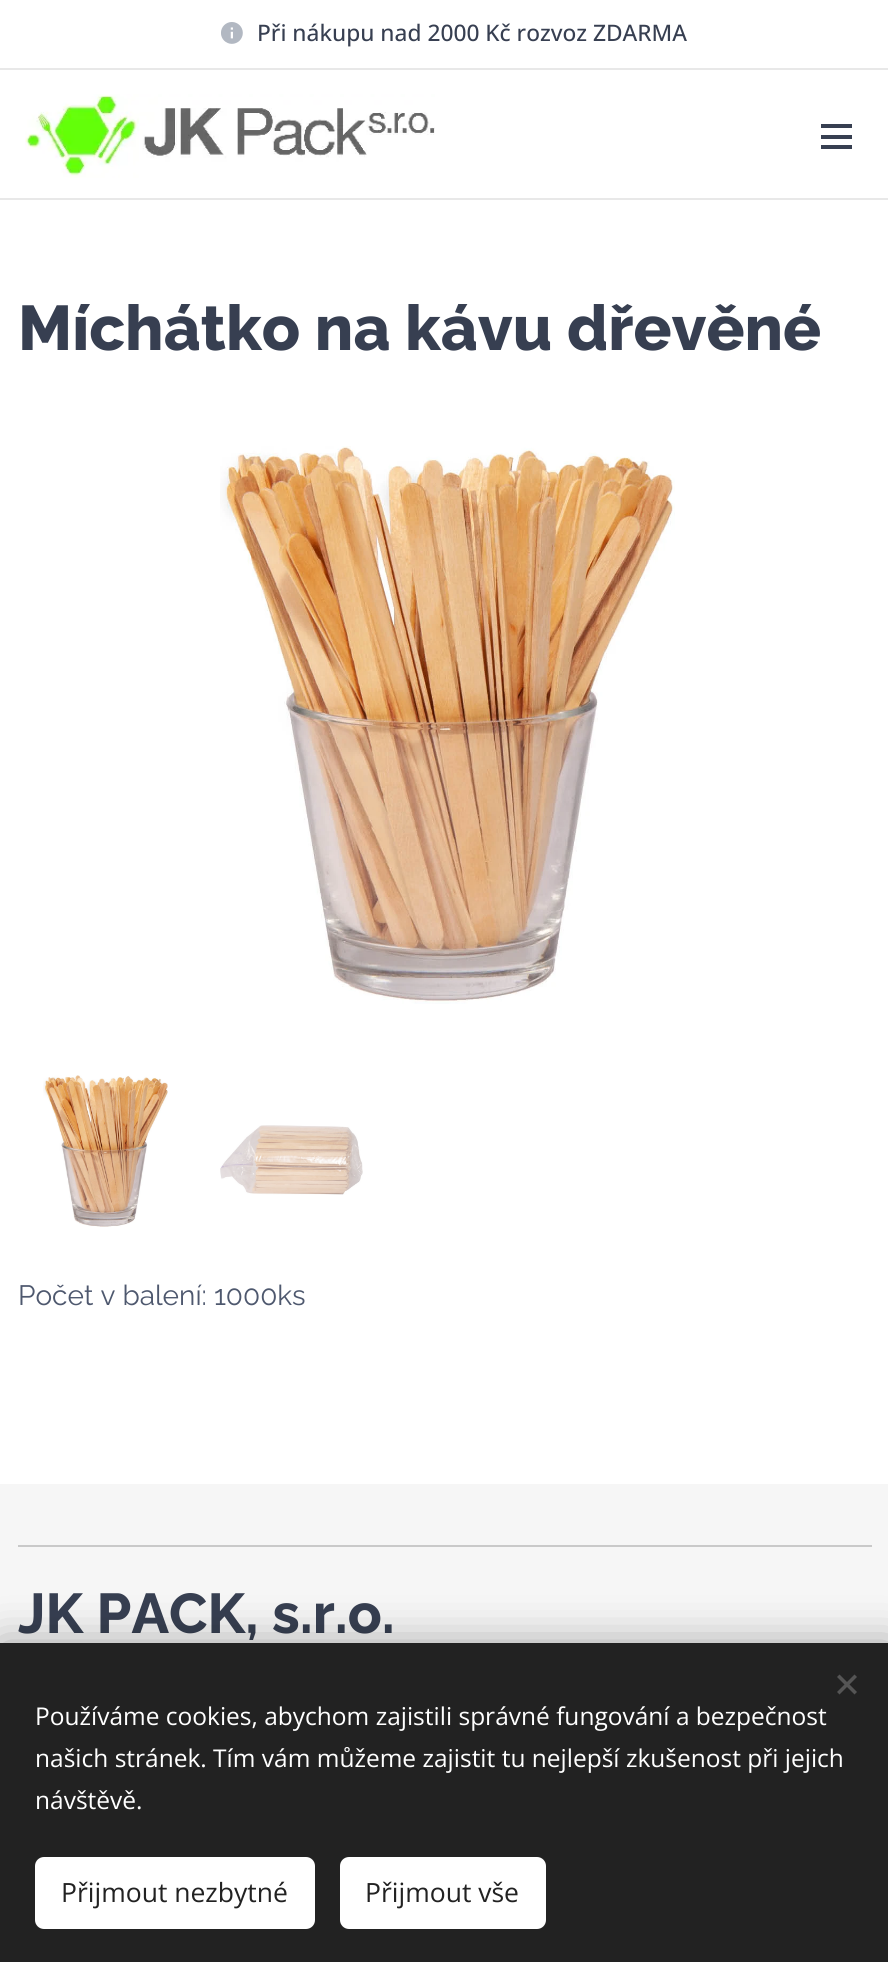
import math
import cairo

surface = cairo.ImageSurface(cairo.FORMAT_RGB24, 888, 1962)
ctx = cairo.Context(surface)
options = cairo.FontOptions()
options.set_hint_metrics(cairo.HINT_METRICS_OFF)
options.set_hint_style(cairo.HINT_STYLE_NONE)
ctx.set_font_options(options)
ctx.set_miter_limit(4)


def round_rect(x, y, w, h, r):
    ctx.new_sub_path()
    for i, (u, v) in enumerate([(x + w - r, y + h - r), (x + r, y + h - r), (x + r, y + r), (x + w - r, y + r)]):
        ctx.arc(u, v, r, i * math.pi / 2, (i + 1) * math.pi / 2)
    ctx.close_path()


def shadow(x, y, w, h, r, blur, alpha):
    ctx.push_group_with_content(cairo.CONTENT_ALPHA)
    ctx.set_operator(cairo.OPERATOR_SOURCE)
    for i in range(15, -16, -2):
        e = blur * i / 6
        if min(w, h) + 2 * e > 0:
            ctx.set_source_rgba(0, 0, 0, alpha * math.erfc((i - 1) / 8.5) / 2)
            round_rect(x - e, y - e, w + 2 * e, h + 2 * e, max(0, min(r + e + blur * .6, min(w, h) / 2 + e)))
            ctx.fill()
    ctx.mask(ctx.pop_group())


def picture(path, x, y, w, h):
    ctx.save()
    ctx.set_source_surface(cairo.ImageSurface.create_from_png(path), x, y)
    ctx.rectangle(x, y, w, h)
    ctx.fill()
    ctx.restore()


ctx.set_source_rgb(1, 1, 1)
ctx.paint()
picture("img1.png", 221, 22, 22, 22)
ctx.select_font_face("Open Sans Medium")
ctx.set_font_size(22.75)
ctx.set_source_rgb(0.216, 0.247, 0.318)
ctx.move_to(257, 41)
ctx.show_text("Při nákupu nad 2000 Kč rozvoz ZDARMA")
ctx.set_source_rgb(0.91, 0.91, 0.91)
ctx.rectangle(0, 68, 888, 2)
ctx.fill()
picture("img2.png", 25, 94, 410, 84)
ctx.set_source_rgb(0.216, 0.247, 0.318)
ctx.rectangle(821, 135, 31, 4)
ctx.fill()
ctx.rectangle(821, 124, 31, 4)
ctx.fill()
ctx.rectangle(821, 145, 31, 4)
ctx.fill()
ctx.set_source_rgb(0.91, 0.91, 0.91)
ctx.rectangle(0, 198, 888, 2)
ctx.fill()
ctx.select_font_face("Raleway ExtraBold")
ctx.set_font_size(63)
ctx.set_source_rgb(0.216, 0.247, 0.318)
ctx.move_to(18, 350)
ctx.show_text("Míchátko na kávu dřevěné")
picture("img3.png", 220, 446, 455, 558)
picture("img4.png", 43, 1075, 125, 152)
picture("img5.png", 220, 1125, 143, 70)
ctx.select_font_face("Raleway")
ctx.set_font_size(28)
ctx.set_source_rgb(0.306, 0.345, 0.431)
ctx.move_to(18, 1305)
ctx.show_text("Počet v balení: 1000ks")
ctx.set_source_rgb(0.961, 0.961, 0.961)
ctx.rectangle(0, 1484, 888, 159)
ctx.fill()
ctx.set_source_rgb(0.788, 0.788, 0.788)
ctx.rectangle(18, 1545, 854, 2)
ctx.fill()
ctx.select_font_face("Raleway", cairo.FONT_SLANT_NORMAL, cairo.FONT_WEIGHT_BOLD)
ctx.set_font_size(56)
ctx.set_source_rgb(0.216, 0.247, 0.318)
ctx.move_to(18, 1633)
ctx.show_text("JK PACK, s.r.o.")
ctx.set_source_rgb(0, 0, 0)
shadow(0, 1643, 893, 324, 0, 22, 0.33)
ctx.set_source_rgb(0.133, 0.133, 0.133)
ctx.rectangle(0, 1643, 888, 319)
ctx.fill()
ctx.set_source_rgb(0.333, 0.333, 0.333)
ctx.new_path()
ctx.move_to(837, 1692)
ctx.line_to(854.5, 1674.5)
ctx.line_to(857, 1677)
ctx.line_to(839.5, 1694.5)
ctx.close_path()
ctx.fill()
ctx.new_path()
ctx.move_to(839.5, 1674.5)
ctx.line_to(857, 1692)
ctx.line_to(854.5, 1694.5)
ctx.line_to(837, 1677)
ctx.close_path()
ctx.fill()
ctx.select_font_face("Open Sans")
ctx.set_font_size(24.5)
ctx.set_source_rgb(1, 1, 1)
ctx.move_to(35, 1725)
ctx.show_text("Používáme cookies, abychom zajistili správné fungování a bezpečnost")
ctx.move_to(35, 1767)
ctx.show_text("našich stránek. Tím vám můžeme zajistit tu nejlepší zkušenost při jejich")
ctx.move_to(35, 1809)
ctx.show_text("návštěvě.")
round_rect(35, 1857, 280, 72, 9)
ctx.fill()
ctx.set_font_size(26.5)
ctx.set_source_rgb(0.133, 0.133, 0.133)
ctx.move_to(61, 1902)
ctx.show_text("Přijmout nezbytné")
ctx.set_source_rgb(1, 1, 1)
round_rect(340, 1857, 206, 72, 9)
ctx.fill()
ctx.set_source_rgb(0.133, 0.133, 0.133)
ctx.move_to(365, 1902)
ctx.show_text("Přijmout vše")
surface.write_to_png("page.png")
